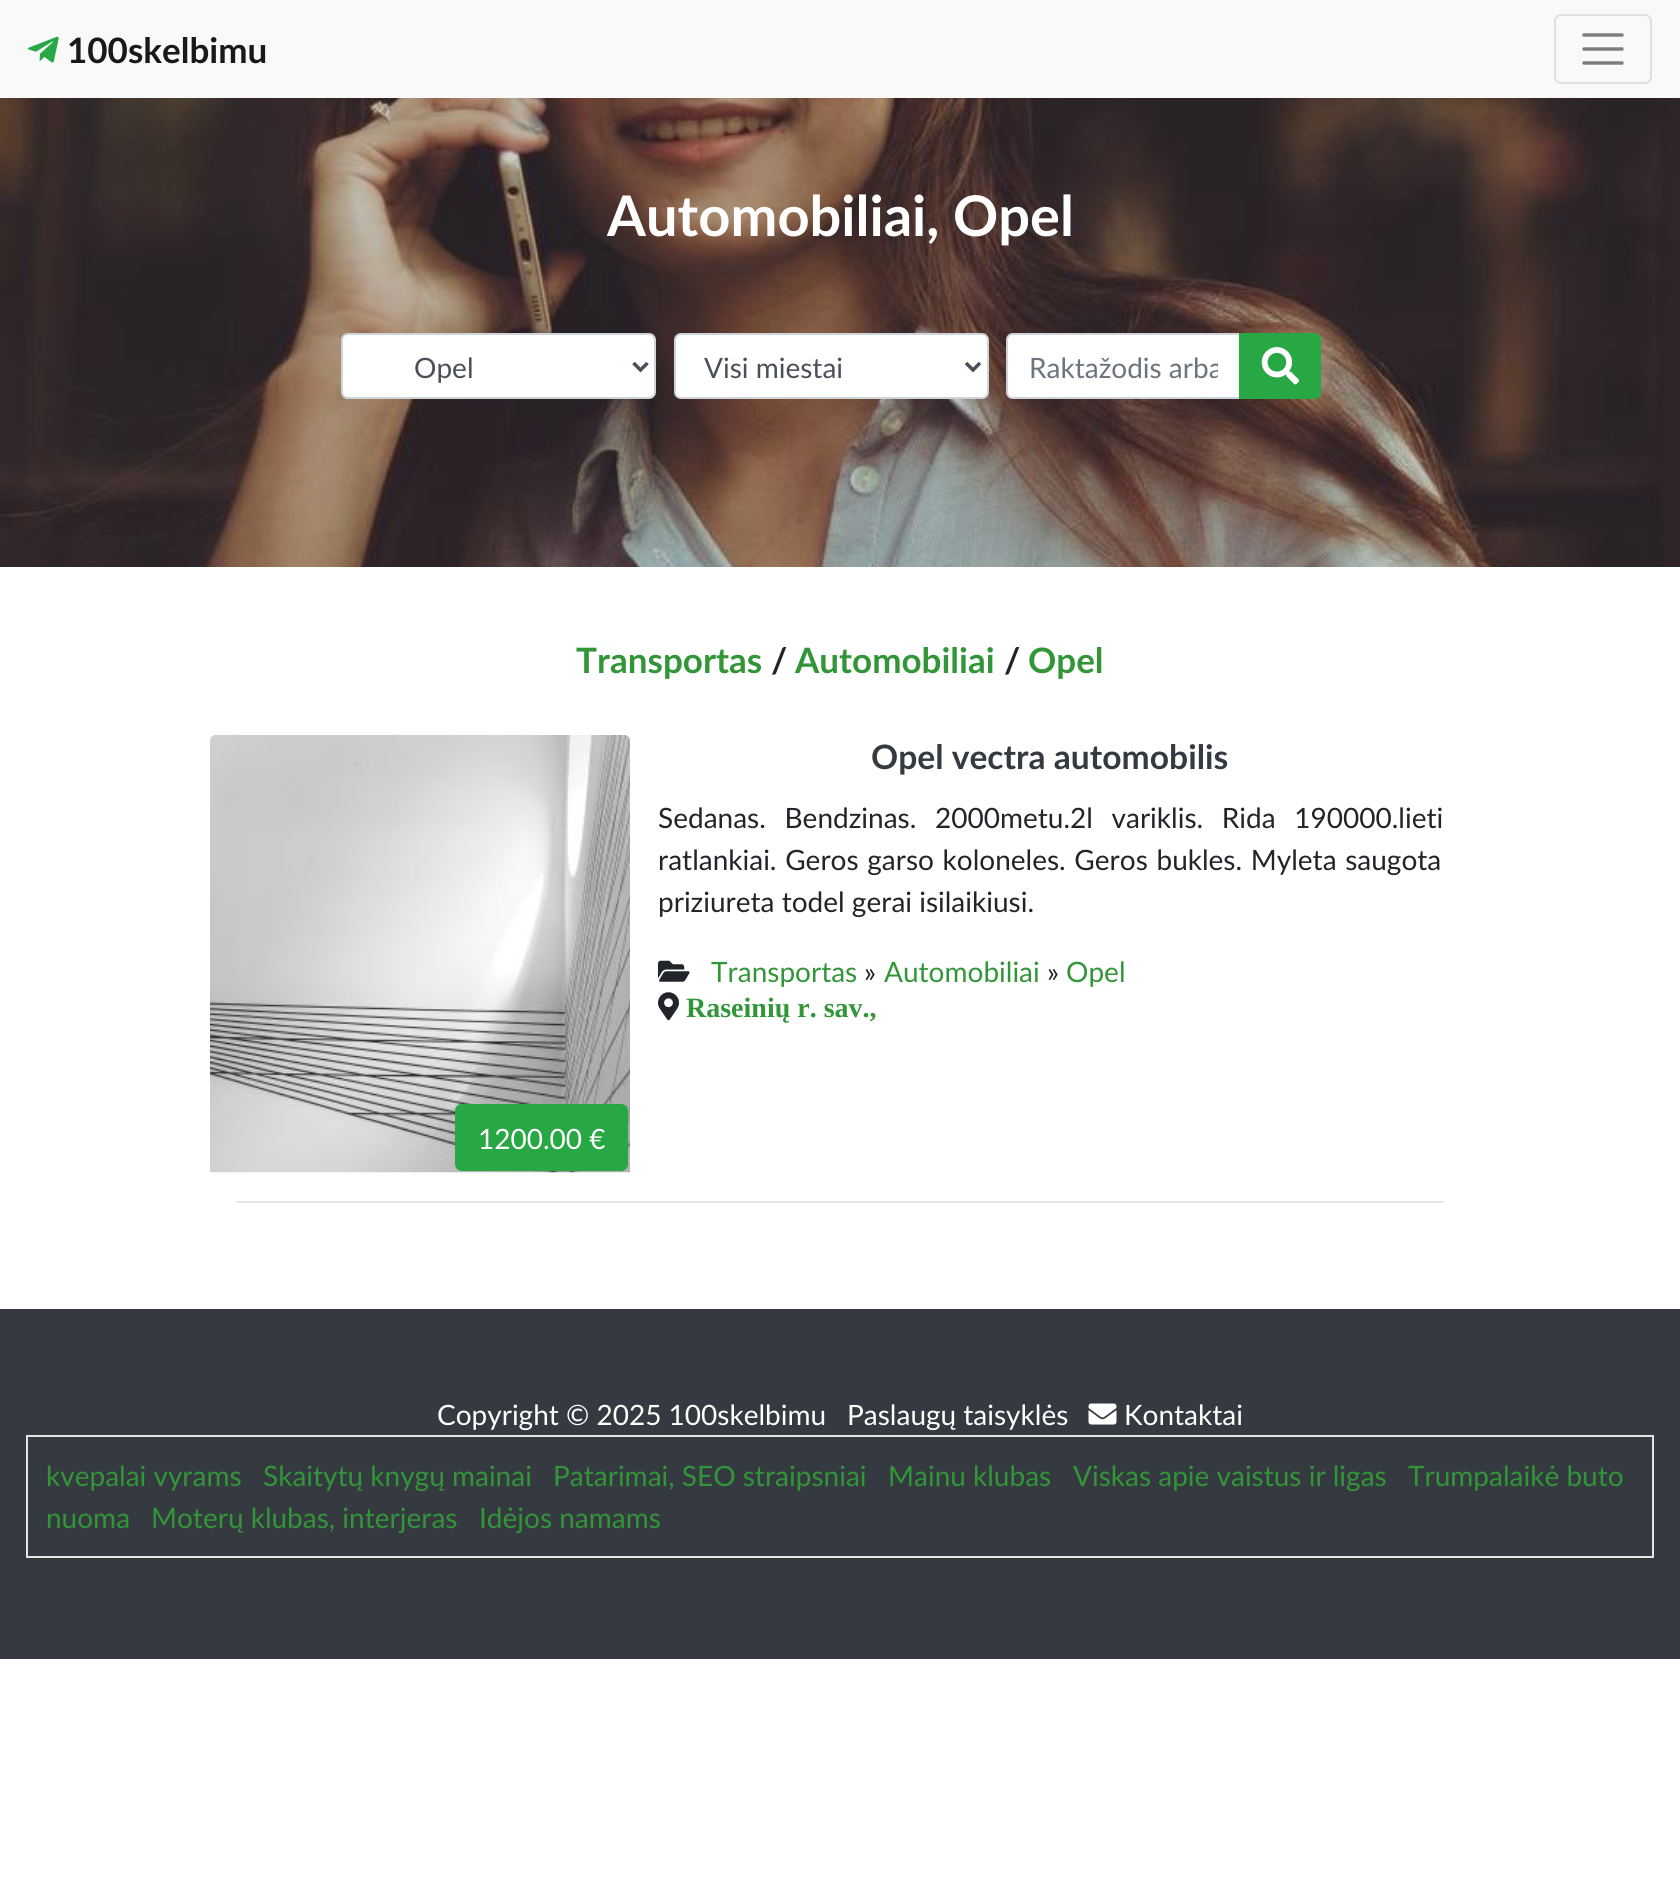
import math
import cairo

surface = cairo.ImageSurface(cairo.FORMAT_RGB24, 1680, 1882)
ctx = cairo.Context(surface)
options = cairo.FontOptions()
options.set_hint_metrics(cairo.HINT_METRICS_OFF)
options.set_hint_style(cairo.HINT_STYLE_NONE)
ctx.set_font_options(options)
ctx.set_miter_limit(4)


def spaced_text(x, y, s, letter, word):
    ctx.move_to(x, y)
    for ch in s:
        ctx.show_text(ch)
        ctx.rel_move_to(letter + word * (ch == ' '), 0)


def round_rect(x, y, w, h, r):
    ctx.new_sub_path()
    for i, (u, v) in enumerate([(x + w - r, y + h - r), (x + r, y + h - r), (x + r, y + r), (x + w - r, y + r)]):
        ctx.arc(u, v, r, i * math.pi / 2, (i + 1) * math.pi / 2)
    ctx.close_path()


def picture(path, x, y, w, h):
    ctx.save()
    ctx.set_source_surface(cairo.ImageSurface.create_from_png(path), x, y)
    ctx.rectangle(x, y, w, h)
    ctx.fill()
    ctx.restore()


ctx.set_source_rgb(1, 1, 1)
ctx.paint()
ctx.set_source_rgb(0.973, 0.976, 0.98)
ctx.rectangle(0, 0, 1680, 98)
ctx.fill()
picture("img1.png", 28, 36, 31, 27)
ctx.select_font_face("Lato", cairo.FONT_SLANT_NORMAL, cairo.FONT_WEIGHT_BOLD)
ctx.set_font_size(35)
ctx.set_source_rgb(0.098, 0.098, 0.098)
ctx.move_to(67, 63)
ctx.show_text("100skelbimu")
round_rect(1555, 15, 96, 68, 6)
ctx.set_source_rgb(0.875, 0.878, 0.882)
ctx.stroke()
ctx.new_path()
ctx.move_to(1584, 35)
ctx.line_to(1622, 35)
ctx.move_to(1584, 49)
ctx.line_to(1622, 49)
ctx.move_to(1584, 63)
ctx.line_to(1622, 63)
ctx.set_source_rgb(0.486, 0.49, 0.49)
ctx.set_line_width(3.5)
ctx.set_line_cap(cairo.LINE_CAP_ROUND)
ctx.stroke()
picture("img2.png", 0, 98, 1680, 469)
ctx.set_font_size(56)
ctx.set_source_rgb(1, 1, 1)
ctx.move_to(607, 236)
ctx.show_text("Automobiliai, Opel")
round_rect(342, 334, 313, 64, 6)
ctx.fill_preserve()
ctx.set_source_rgb(0.808, 0.831, 0.855)
ctx.set_line_width(2)
ctx.set_line_cap(cairo.LINE_CAP_BUTT)
ctx.stroke()
ctx.new_path()
ctx.move_to(633.5, 363)
ctx.line_to(640.5, 370)
ctx.line_to(647.5, 363)
ctx.set_source_rgb(0.286, 0.314, 0.341)
ctx.set_line_width(3.5)
ctx.stroke()
ctx.select_font_face("Lato")
ctx.set_font_size(28)
ctx.move_to(414, 378)
ctx.show_text("Opel")
ctx.set_source_rgb(1, 1, 1)
round_rect(675, 334, 313, 64, 6)
ctx.fill_preserve()
ctx.set_source_rgb(0.808, 0.831, 0.855)
ctx.set_line_width(2)
ctx.stroke()
ctx.new_path()
ctx.move_to(966, 363)
ctx.line_to(973, 370)
ctx.line_to(980, 363)
ctx.set_source_rgb(0.286, 0.314, 0.341)
ctx.set_line_width(3.5)
ctx.stroke()
ctx.move_to(704, 378)
ctx.show_text("Visi miestai")
ctx.set_source_rgb(1, 1, 1)
ctx.new_path()
ctx.move_to(1013, 334)
ctx.line_to(1240, 334)
ctx.line_to(1240, 398)
ctx.line_to(1013, 398)
ctx.curve_to(1009.5, 398, 1007, 395.5, 1007, 392)
ctx.line_to(1007, 340)
ctx.curve_to(1007, 336.5, 1009.5, 334, 1013, 334)
ctx.close_path()
ctx.fill_preserve()
ctx.set_source_rgb(0.808, 0.831, 0.855)
ctx.set_line_width(2)
ctx.stroke()
ctx.save()
ctx.rectangle(1029, 350, 189, 33)
ctx.clip()
ctx.set_source_rgb(0.424, 0.459, 0.49)
ctx.move_to(1029, 378)
ctx.show_text("Raktažodis arba")
ctx.restore()
ctx.set_source_rgb(0.157, 0.655, 0.271)
ctx.new_path()
ctx.move_to(1240, 334)
ctx.line_to(1314, 334)
ctx.curve_to(1317.5, 334, 1320, 336.5, 1320, 340)
ctx.line_to(1320, 392)
ctx.curve_to(1320, 395.5, 1317.5, 398, 1314, 398)
ctx.line_to(1240, 398)
ctx.close_path()
ctx.fill_preserve()
ctx.stroke()
picture("img3.png", 1261, 347, 39, 38)
ctx.select_font_face("Lato", cairo.FONT_SLANT_NORMAL, cairo.FONT_WEIGHT_BOLD)
ctx.set_font_size(35)
ctx.set_source_rgb(0.196, 0.584, 0.22)
ctx.move_to(576, 673)
ctx.show_text("Transportas")
ctx.set_source_rgb(0.129, 0.145, 0.161)
ctx.move_to(771, 673)
ctx.show_text("/")
ctx.set_source_rgb(0.196, 0.584, 0.22)
ctx.move_to(795, 673)
ctx.show_text("Automobiliai")
ctx.set_source_rgb(0.129, 0.145, 0.161)
ctx.move_to(1004, 673)
ctx.show_text("/")
ctx.set_source_rgb(0.196, 0.584, 0.22)
ctx.move_to(1028, 673)
ctx.show_text("Opel")
ctx.set_font_size(33.6)
ctx.set_source_rgb(0.204, 0.227, 0.251)
ctx.move_to(871, 769)
ctx.show_text("Opel vectra automobilis")
ctx.select_font_face("Lato")
ctx.set_font_size(28)
ctx.set_source_rgb(0.129, 0.145, 0.161)
spaced_text(658, 828, "Sedanas. Bendzinas. 2000metu.2l variklis. Rida 190000.lieti", 0, 11.5)
spaced_text(658, 870, "ratlankiai. Geros garso koloneles. Geros bukles. Myleta saugota", 0, 1.5)
ctx.move_to(658, 912)
ctx.show_text("priziureta todel gerai isilaikiusi.")
picture("img4.png", 658, 960, 32, 22)
ctx.set_source_rgb(0.196, 0.584, 0.22)
ctx.move_to(711, 982)
ctx.show_text("Transportas")
ctx.set_source_rgb(0.129, 0.145, 0.161)
ctx.move_to(864, 982)
ctx.show_text("»")
ctx.set_source_rgb(0.196, 0.584, 0.22)
ctx.move_to(884, 982)
ctx.show_text("Automobiliai")
ctx.set_source_rgb(0.129, 0.145, 0.161)
ctx.move_to(1047, 982)
ctx.show_text("»")
ctx.set_source_rgb(0.196, 0.584, 0.22)
ctx.move_to(1066, 982)
ctx.show_text("Opel")
picture("img5.png", 658, 992, 21, 29)
ctx.select_font_face("Liberation Serif", cairo.FONT_SLANT_NORMAL, cairo.FONT_WEIGHT_BOLD)
ctx.move_to(686, 1017)
ctx.show_text("Raseinių r. sav.,")
picture("img6.png", 210, 735, 420, 438)
ctx.set_source_rgb(0.157, 0.655, 0.271)
round_rect(456, 1105, 171, 65, 6)
ctx.fill_preserve()
ctx.stroke()
ctx.select_font_face("Lato")
ctx.set_source_rgb(1, 1, 1)
ctx.move_to(478, 1149)
ctx.show_text("1200.00 €")
ctx.set_source_rgb(0.902, 0.902, 0.902)
ctx.rectangle(236, 1201, 1208, 2)
ctx.fill()
ctx.set_source_rgb(0.204, 0.227, 0.251)
ctx.rectangle(0, 1309, 1680, 350)
ctx.fill()
ctx.set_source_rgb(1, 1, 1)
ctx.move_to(437, 1425)
ctx.show_text("Copyright © 2025 100skelbimu")
ctx.move_to(847, 1425)
ctx.show_text("Paslaugų taisyklės")
picture("img7.png", 1088, 1403, 29, 22)
ctx.move_to(1124, 1425)
ctx.show_text("Kontaktai")
ctx.rectangle(27, 1436, 1626, 121)
ctx.set_source_rgb(0.898, 0.898, 0.898)
ctx.stroke()
ctx.set_source_rgb(0.196, 0.584, 0.22)
ctx.move_to(46, 1486)
ctx.show_text("kvepalai vyrams")
ctx.move_to(263, 1486)
ctx.show_text("Skaitytų knygų mainai")
ctx.move_to(553, 1486)
ctx.show_text("Patarimai, SEO straipsniai")
ctx.move_to(888, 1486)
ctx.show_text("Mainu klubas")
ctx.move_to(1073, 1486)
ctx.show_text("Viskas apie vaistus ir ligas")
ctx.move_to(1408, 1486)
ctx.show_text("Trumpalaikė buto")
ctx.move_to(46, 1528)
ctx.show_text("nuoma")
ctx.move_to(151, 1528)
ctx.show_text("Moterų klubas, interjeras")
ctx.move_to(479, 1528)
ctx.show_text("Idėjos namams")
surface.write_to_png("page.png")
